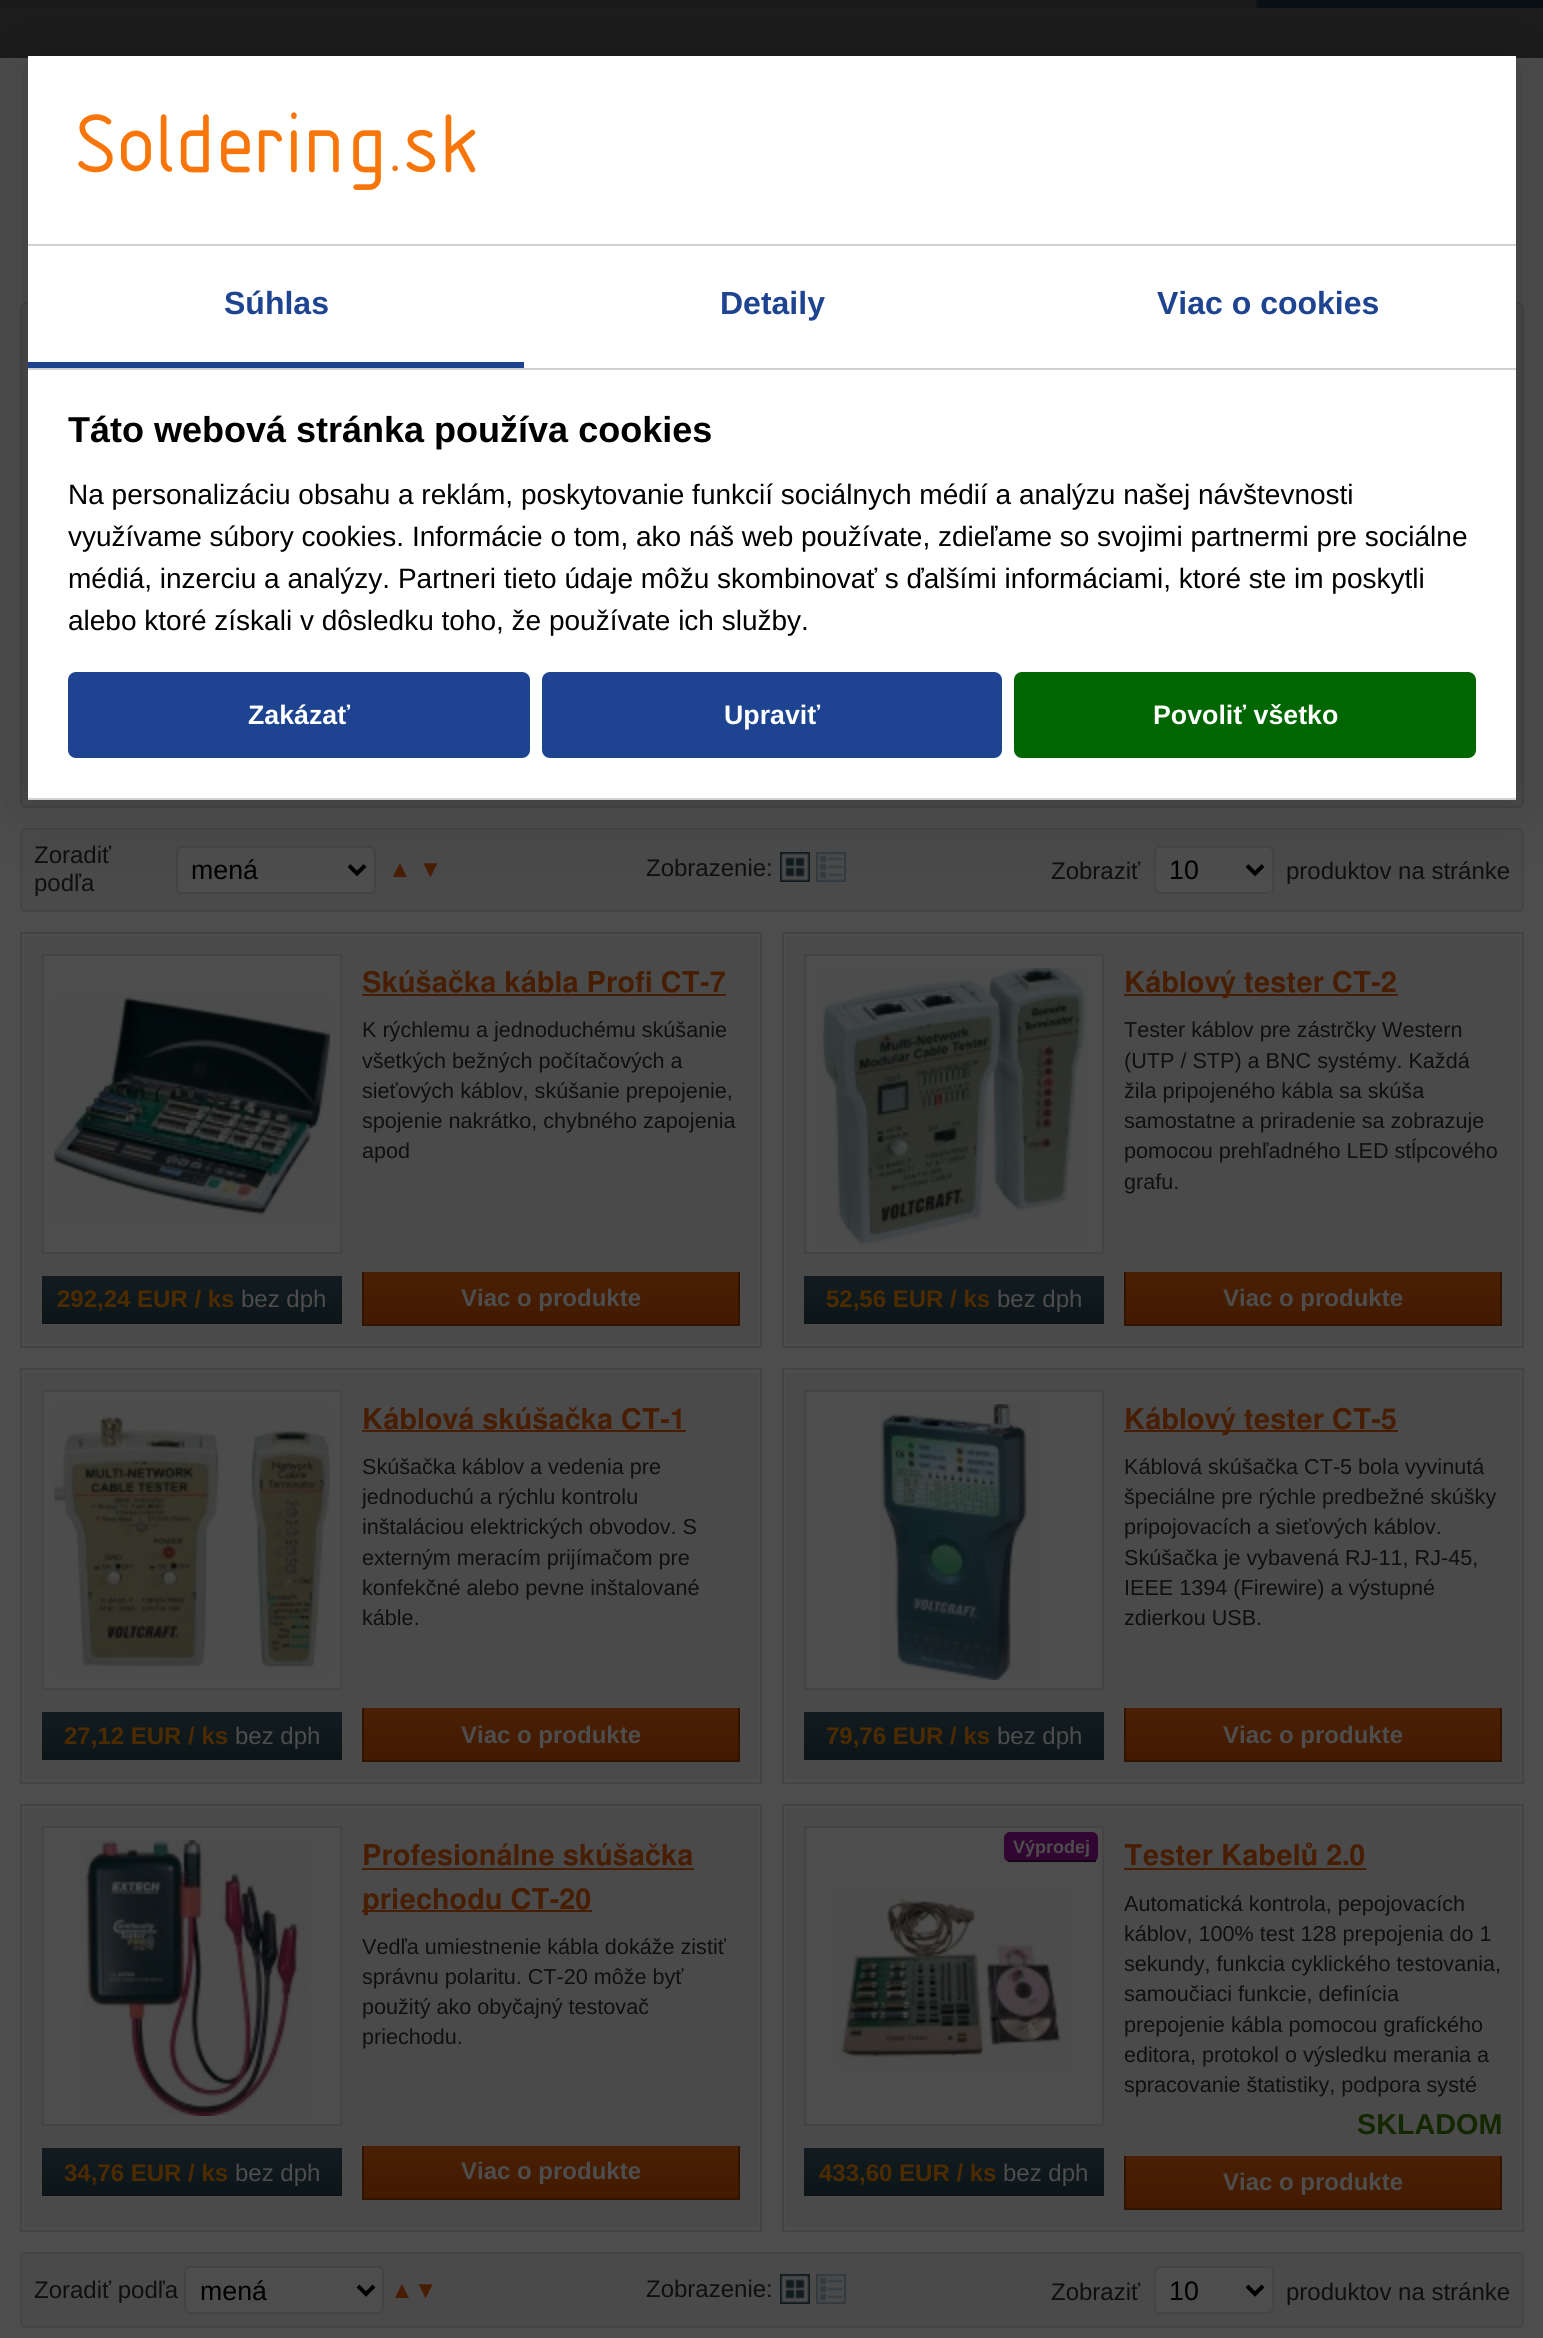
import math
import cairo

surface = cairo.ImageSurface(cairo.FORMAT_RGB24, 1543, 2338)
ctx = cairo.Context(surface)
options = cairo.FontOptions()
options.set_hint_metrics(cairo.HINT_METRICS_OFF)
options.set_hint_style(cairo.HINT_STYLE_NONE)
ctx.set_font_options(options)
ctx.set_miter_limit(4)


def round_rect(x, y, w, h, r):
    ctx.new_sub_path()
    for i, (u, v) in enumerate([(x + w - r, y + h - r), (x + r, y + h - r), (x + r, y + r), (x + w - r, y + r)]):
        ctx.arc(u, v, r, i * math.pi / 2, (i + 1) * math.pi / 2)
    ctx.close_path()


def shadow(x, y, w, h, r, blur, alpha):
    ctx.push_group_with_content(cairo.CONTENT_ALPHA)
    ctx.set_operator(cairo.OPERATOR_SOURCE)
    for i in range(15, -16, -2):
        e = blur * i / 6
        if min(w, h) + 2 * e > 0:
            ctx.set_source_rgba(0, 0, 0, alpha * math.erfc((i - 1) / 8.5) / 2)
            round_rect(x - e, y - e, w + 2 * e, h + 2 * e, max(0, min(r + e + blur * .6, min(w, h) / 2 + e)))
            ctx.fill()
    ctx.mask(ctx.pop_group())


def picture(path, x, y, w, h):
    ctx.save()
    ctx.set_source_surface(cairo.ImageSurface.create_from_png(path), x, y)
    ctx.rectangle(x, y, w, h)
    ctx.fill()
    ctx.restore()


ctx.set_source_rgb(0.098, 0.098, 0.098)
ctx.paint()
picture("img2.png", 1256, 0, 287, 8)
ctx.set_source_rgb(0.114, 0.114, 0.114)
ctx.rectangle(0, 8, 1543, 50)
ctx.fill()
ctx.set_source_rgb(0.302, 0.302, 0.302)
ctx.rectangle(0, 58, 1543, 2280)
ctx.fill()
ctx.set_source_rgb(0.29, 0.29, 0.29)
round_rect(21, 303, 1502, 504, 5)
ctx.fill_preserve()
ctx.set_source_rgb(0.267, 0.267, 0.267)
ctx.stroke()
ctx.set_source_rgb(0.29, 0.29, 0.29)
round_rect(21, 829, 1502, 82, 5)
ctx.fill_preserve()
ctx.set_source_rgb(0.267, 0.267, 0.267)
ctx.stroke()
ctx.set_source_rgb(0.302, 0.302, 0.302)
round_rect(177, 847, 198, 46, 5)
ctx.fill_preserve()
ctx.set_source_rgb(0.267, 0.267, 0.267)
ctx.stroke()
ctx.new_path()
ctx.move_to(349, 865.5)
ctx.line_to(357, 873.5)
ctx.line_to(365, 865.5)
ctx.set_source_rgb(0, 0, 0)
ctx.set_line_width(4)
ctx.stroke()
picture("img3.png", 780, 852, 30, 30)
picture("img4.png", 816, 852, 30, 30)
ctx.set_source_rgb(0.302, 0.302, 0.302)
round_rect(1155, 847, 118, 46, 5)
ctx.fill_preserve()
ctx.set_source_rgb(0.267, 0.267, 0.267)
ctx.set_line_width(2)
ctx.stroke()
ctx.new_path()
ctx.move_to(1247, 865.5)
ctx.line_to(1255, 873.5)
ctx.line_to(1263, 865.5)
ctx.set_source_rgb(0, 0, 0)
ctx.set_line_width(4)
ctx.stroke()
ctx.set_source_rgb(0, 0, 0)
shadow(28, 56, 1488, 744, 0, 40, 0.2)
ctx.set_source_rgb(1, 1, 1)
ctx.rectangle(28, 56, 1488, 742)
ctx.fill()
ctx.set_source_rgb(0.824, 0.824, 0.824)
ctx.rectangle(28, 244, 1488, 2)
ctx.fill()
picture("img1.png", 78, 112, 398, 78)
ctx.rectangle(28, 368, 1488, 2)
ctx.fill()
ctx.set_source_rgb(0.118, 0.267, 0.569)
ctx.rectangle(28, 362, 496, 6)
ctx.fill()
ctx.select_font_face("Liberation Sans", cairo.FONT_SLANT_NORMAL, cairo.FONT_WEIGHT_BOLD)
ctx.set_font_size(32)
ctx.move_to(224, 314)
ctx.show_text("Súhlas")
ctx.move_to(720, 314)
ctx.show_text("Detaily")
ctx.move_to(1157, 314)
ctx.show_text("Viac o cookies")
ctx.set_source_rgb(0.824, 0.824, 0.824)
ctx.rectangle(28, 798, 1488, 2)
ctx.fill()
ctx.set_font_size(36)
ctx.set_source_rgb(0, 0, 0)
ctx.move_to(68, 442)
ctx.show_text("Táto webová stránka používa cookies")
ctx.select_font_face("Liberation Sans")
ctx.set_font_size(28)
ctx.move_to(68, 504)
ctx.show_text("Na personalizáciu obsahu a reklám, poskytovanie funkcií sociálnych médií a analýzu našej návštevnosti")
ctx.move_to(68, 546)
ctx.show_text("využívame súbory cookies. Informácie o tom, ako náš web používate, zdieľame so svojimi partnermi pre sociálne")
ctx.move_to(68, 588)
ctx.show_text("médiá, inzerciu a analýzy. Partneri tieto údaje môžu skombinovať s ďalšími informáciami, ktoré ste im poskytli")
ctx.move_to(68, 630)
ctx.show_text("alebo ktoré získali v dôsledku toho, že používate ich služby.")
ctx.set_source_rgb(0.118, 0.267, 0.569)
round_rect(68, 672, 462, 86, 8)
ctx.fill()
ctx.select_font_face("Liberation Sans", cairo.FONT_SLANT_NORMAL, cairo.FONT_WEIGHT_BOLD)
ctx.set_font_size(26.75)
ctx.set_source_rgb(1, 1, 1)
ctx.move_to(248, 724)
ctx.show_text("Zakázať")
ctx.set_source_rgb(0.118, 0.267, 0.569)
round_rect(542, 672, 460, 86, 8)
ctx.fill()
ctx.set_source_rgb(1, 1, 1)
ctx.move_to(724, 724)
ctx.show_text("Upraviť")
ctx.set_source_rgb(0, 0.4, 0)
round_rect(1014, 672, 462, 86, 8)
ctx.fill()
ctx.set_source_rgb(1, 1, 1)
ctx.move_to(1153, 724)
ctx.show_text("Povoliť všetko")
ctx.select_font_face("Liberation Sans")
ctx.set_font_size(24)
ctx.set_source_rgb(0.059, 0.059, 0.059)
ctx.move_to(34, 863)
ctx.show_text("Zoradiť")
ctx.move_to(34, 891)
ctx.show_text("podľa")
ctx.set_font_size(26.75)
ctx.set_source_rgb(0, 0, 0)
ctx.move_to(191, 879)
ctx.show_text("mená")
ctx.set_font_size(24)
ctx.set_source_rgb(0.278, 0.118, 0.012)
ctx.move_to(388, 877)
ctx.show_text("▲ ▼")
ctx.set_source_rgb(0.059, 0.059, 0.059)
ctx.move_to(646, 876)
ctx.show_text("Zobrazenie:")
ctx.move_to(1051, 879)
ctx.show_text("Zobraziť")
ctx.set_font_size(26.75)
ctx.set_source_rgb(0, 0, 0)
ctx.move_to(1169, 879)
ctx.show_text("10")
ctx.set_font_size(24)
ctx.set_source_rgb(0.059, 0.059, 0.059)
ctx.move_to(1286, 879)
ctx.show_text("produktov na stránke")
ctx.set_source_rgb(0.29, 0.29, 0.29)
ctx.rectangle(24, 936, 734, 408)
ctx.fill()
ctx.rectangle(21, 933, 740, 414)
ctx.set_source_rgb(0.267, 0.267, 0.267)
ctx.set_line_width(2)
ctx.stroke()
ctx.set_source_rgb(0.302, 0.302, 0.302)
ctx.rectangle(43, 955, 298, 298)
ctx.fill_preserve()
ctx.set_source_rgb(0.267, 0.267, 0.267)
ctx.stroke()
picture("img5.png", 54, 995, 276, 229)
picture("img6.png", 42, 1276, 300, 48)
ctx.select_font_face("Liberation Sans", cairo.FONT_SLANT_NORMAL, cairo.FONT_WEIGHT_BOLD)
ctx.set_source_rgb(0.302, 0.169, 0)
ctx.move_to(57, 1307)
ctx.show_text("292,24 EUR / ks")
ctx.select_font_face("Liberation Sans")
ctx.set_source_rgb(0.302, 0.302, 0.302)
ctx.move_to(241, 1307)
ctx.show_text("bez dph")
ctx.select_font_face("FreeSans SemiBold")
ctx.set_font_size(28.75)
ctx.set_source_rgb(0.278, 0.118, 0.012)
ctx.move_to(362, 992)
ctx.show_text("Skúšačka kábla Profi CT-7")
ctx.rectangle(362, 994, 364, 2)
ctx.fill()
ctx.select_font_face("Liberation Sans")
ctx.set_font_size(21.6)
ctx.set_source_rgb(0.059, 0.059, 0.059)
ctx.move_to(362, 1037)
ctx.show_text("K rýchlemu a jednoduchému skúšanie")
ctx.move_to(362, 1068)
ctx.show_text("všetkých bežných počítačových a")
ctx.move_to(362, 1098)
ctx.show_text("sieťových káblov, skúšanie prepojenie,")
ctx.move_to(362, 1128)
ctx.show_text("spojenie nakrátko, chybného zapojenia")
ctx.move_to(362, 1158)
ctx.show_text("apod")
gradient = cairo.LinearGradient(551, 1272, 551, 1324)
gradient.add_color_stop_rgba(0, 0.286, 0.125, 0.016, 1)
gradient.add_color_stop_rgba(1, 0.259, 0.102, 0, 1)
ctx.set_source(gradient)
ctx.rectangle(364, 1272, 374, 52)
ctx.fill()
ctx.set_source_rgb(0.196, 0.078, 0)
ctx.rectangle(738, 1272, 2, 54)
ctx.fill()
ctx.rectangle(362, 1324, 378, 2)
ctx.fill()
ctx.rectangle(362, 1272, 2, 54)
ctx.fill()
ctx.select_font_face("Liberation Sans", cairo.FONT_SLANT_NORMAL, cairo.FONT_WEIGHT_BOLD)
ctx.set_font_size(24)
ctx.set_source_rgb(0.302, 0.302, 0.302)
ctx.move_to(461, 1306)
ctx.show_text("Viac o produkte")
ctx.set_source_rgb(0.29, 0.29, 0.29)
ctx.rectangle(786, 936, 734, 408)
ctx.fill()
ctx.rectangle(783, 933, 740, 414)
ctx.set_source_rgb(0.267, 0.267, 0.267)
ctx.stroke()
ctx.set_source_rgb(0.302, 0.302, 0.302)
ctx.rectangle(805, 955, 298, 298)
ctx.fill_preserve()
ctx.set_source_rgb(0.267, 0.267, 0.267)
ctx.stroke()
picture("img7.png", 816, 968, 272, 276)
picture("img6.png", 804, 1276, 300, 48)
ctx.set_source_rgb(0.302, 0.169, 0)
ctx.move_to(826, 1307)
ctx.show_text("52,56 EUR / ks")
ctx.select_font_face("Liberation Sans")
ctx.set_source_rgb(0.302, 0.302, 0.302)
ctx.move_to(997, 1307)
ctx.show_text("bez dph")
ctx.set_source_rgb(0.278, 0.118, 0.012)
ctx.rectangle(1124, 994, 274, 2)
ctx.fill()
ctx.select_font_face("FreeSans SemiBold")
ctx.set_font_size(28.75)
ctx.move_to(1124, 992)
ctx.show_text("Káblový tester CT-2")
ctx.select_font_face("Liberation Sans")
ctx.set_font_size(21.6)
ctx.set_source_rgb(0.059, 0.059, 0.059)
ctx.move_to(1124, 1037)
ctx.show_text("Tester káblov pre zástrčky Western")
ctx.move_to(1124, 1068)
ctx.show_text("(UTP / STP) a BNC systémy. Každá")
ctx.move_to(1124, 1098)
ctx.show_text("žila pripojeného kábla sa skúša")
ctx.move_to(1124, 1128)
ctx.show_text("samostatne a priradenie sa zobrazuje")
ctx.move_to(1124, 1158)
ctx.show_text("pomocou prehľadného LED stĺpcového")
ctx.move_to(1124, 1189)
ctx.show_text("grafu.")
gradient = cairo.LinearGradient(1313, 1272, 1313, 1324)
gradient.add_color_stop_rgba(0, 0.286, 0.125, 0.016, 1)
gradient.add_color_stop_rgba(1, 0.259, 0.102, 0, 1)
ctx.set_source(gradient)
ctx.rectangle(1126, 1272, 374, 52)
ctx.fill()
ctx.set_source_rgb(0.196, 0.078, 0)
ctx.rectangle(1500, 1272, 2, 54)
ctx.fill()
ctx.rectangle(1124, 1324, 378, 2)
ctx.fill()
ctx.rectangle(1124, 1272, 2, 54)
ctx.fill()
ctx.select_font_face("Liberation Sans", cairo.FONT_SLANT_NORMAL, cairo.FONT_WEIGHT_BOLD)
ctx.set_font_size(24)
ctx.set_source_rgb(0.302, 0.302, 0.302)
ctx.move_to(1223, 1306)
ctx.show_text("Viac o produkte")
ctx.set_source_rgb(0.29, 0.29, 0.29)
ctx.rectangle(24, 1372, 734, 408)
ctx.fill()
ctx.rectangle(21, 1369, 740, 414)
ctx.set_source_rgb(0.267, 0.267, 0.267)
ctx.stroke()
ctx.set_source_rgb(0.302, 0.302, 0.302)
ctx.rectangle(43, 1391, 298, 298)
ctx.fill_preserve()
ctx.set_source_rgb(0.267, 0.267, 0.267)
ctx.stroke()
picture("img8.png", 54, 1404, 276, 272)
picture("img6.png", 42, 1712, 300, 48)
ctx.set_source_rgb(0.302, 0.169, 0)
ctx.move_to(64, 1744)
ctx.show_text("27,12 EUR / ks")
ctx.select_font_face("Liberation Sans")
ctx.set_source_rgb(0.302, 0.302, 0.302)
ctx.move_to(235, 1744)
ctx.show_text("bez dph")
ctx.select_font_face("FreeSans SemiBold")
ctx.set_font_size(28.75)
ctx.set_source_rgb(0.278, 0.118, 0.012)
ctx.move_to(362, 1429)
ctx.show_text("Káblová skúšačka CT-1")
ctx.rectangle(362, 1430, 324, 2)
ctx.fill()
ctx.select_font_face("Liberation Sans")
ctx.set_font_size(21.6)
ctx.set_source_rgb(0.059, 0.059, 0.059)
ctx.move_to(362, 1474)
ctx.show_text("Skúšačka káblov a vedenia pre")
ctx.move_to(362, 1504)
ctx.show_text("jednoduchú a rýchlu kontrolu")
ctx.move_to(362, 1534)
ctx.show_text("inštaláciou elektrických obvodov. S")
ctx.move_to(362, 1565)
ctx.show_text("externým meracím prijímačom pre")
ctx.move_to(362, 1595)
ctx.show_text("konfekčné alebo pevne inštalované")
ctx.move_to(362, 1625)
ctx.show_text("káble.")
gradient = cairo.LinearGradient(551, 1708, 551, 1760)
gradient.add_color_stop_rgba(0, 0.286, 0.125, 0.016, 1)
gradient.add_color_stop_rgba(1, 0.259, 0.102, 0, 1)
ctx.set_source(gradient)
ctx.rectangle(364, 1708, 374, 52)
ctx.fill()
ctx.set_source_rgb(0.196, 0.078, 0)
ctx.rectangle(738, 1708, 2, 54)
ctx.fill()
ctx.rectangle(362, 1760, 378, 2)
ctx.fill()
ctx.rectangle(362, 1708, 2, 54)
ctx.fill()
ctx.select_font_face("Liberation Sans", cairo.FONT_SLANT_NORMAL, cairo.FONT_WEIGHT_BOLD)
ctx.set_font_size(24)
ctx.set_source_rgb(0.302, 0.302, 0.302)
ctx.move_to(461, 1743)
ctx.show_text("Viac o produkte")
ctx.set_source_rgb(0.29, 0.29, 0.29)
ctx.rectangle(786, 1372, 734, 408)
ctx.fill()
ctx.rectangle(783, 1369, 740, 414)
ctx.set_source_rgb(0.267, 0.267, 0.267)
ctx.stroke()
ctx.set_source_rgb(0.302, 0.302, 0.302)
ctx.rectangle(805, 1391, 298, 298)
ctx.fill_preserve()
ctx.set_source_rgb(0.267, 0.267, 0.267)
ctx.stroke()
picture("img9.png", 879, 1404, 161, 276)
picture("img6.png", 804, 1712, 300, 48)
ctx.set_source_rgb(0.302, 0.169, 0)
ctx.move_to(826, 1744)
ctx.show_text("79,76 EUR / ks")
ctx.select_font_face("Liberation Sans")
ctx.set_source_rgb(0.302, 0.302, 0.302)
ctx.move_to(997, 1744)
ctx.show_text("bez dph")
ctx.set_source_rgb(0.278, 0.118, 0.012)
ctx.rectangle(1124, 1430, 274, 2)
ctx.fill()
ctx.select_font_face("FreeSans SemiBold")
ctx.set_font_size(28.75)
ctx.move_to(1124, 1429)
ctx.show_text("Káblový tester CT-5")
ctx.select_font_face("Liberation Sans")
ctx.set_font_size(21.6)
ctx.set_source_rgb(0.059, 0.059, 0.059)
ctx.move_to(1124, 1474)
ctx.show_text("Káblová skúšačka CT-5 bola vyvinutá")
ctx.move_to(1124, 1504)
ctx.show_text("špeciálne pre rýchle predbežné skúšky")
ctx.move_to(1124, 1534)
ctx.show_text("pripojovacích a sieťových káblov.")
ctx.move_to(1124, 1565)
ctx.show_text("Skúšačka je vybavená RJ-11, RJ-45,")
ctx.move_to(1124, 1595)
ctx.show_text("IEEE 1394 (Firewire) a výstupné")
ctx.move_to(1124, 1625)
ctx.show_text("zdierkou USB.")
gradient = cairo.LinearGradient(1313, 1708, 1313, 1760)
gradient.add_color_stop_rgba(0, 0.286, 0.125, 0.016, 1)
gradient.add_color_stop_rgba(1, 0.259, 0.102, 0, 1)
ctx.set_source(gradient)
ctx.rectangle(1126, 1708, 374, 52)
ctx.fill()
ctx.set_source_rgb(0.196, 0.078, 0)
ctx.rectangle(1500, 1708, 2, 54)
ctx.fill()
ctx.rectangle(1124, 1760, 378, 2)
ctx.fill()
ctx.rectangle(1124, 1708, 2, 54)
ctx.fill()
ctx.select_font_face("Liberation Sans", cairo.FONT_SLANT_NORMAL, cairo.FONT_WEIGHT_BOLD)
ctx.set_font_size(24)
ctx.set_source_rgb(0.302, 0.302, 0.302)
ctx.move_to(1223, 1743)
ctx.show_text("Viac o produkte")
ctx.set_source_rgb(0.29, 0.29, 0.29)
ctx.rectangle(24, 1808, 734, 420)
ctx.fill()
ctx.rectangle(21, 1805, 740, 426)
ctx.set_source_rgb(0.267, 0.267, 0.267)
ctx.stroke()
ctx.set_source_rgb(0.302, 0.302, 0.302)
ctx.rectangle(43, 1827, 298, 298)
ctx.fill_preserve()
ctx.set_source_rgb(0.267, 0.267, 0.267)
ctx.stroke()
picture("img10.png", 85, 1840, 225, 276)
picture("img6.png", 42, 2148, 300, 48)
ctx.set_source_rgb(0.302, 0.169, 0)
ctx.move_to(64, 2181)
ctx.show_text("34,76 EUR / ks")
ctx.select_font_face("Liberation Sans")
ctx.set_source_rgb(0.302, 0.302, 0.302)
ctx.move_to(235, 2181)
ctx.show_text("bez dph")
ctx.select_font_face("FreeSans SemiBold")
ctx.set_font_size(28.75)
ctx.set_source_rgb(0.278, 0.118, 0.012)
ctx.move_to(362, 1865)
ctx.show_text("Profesionálne skúšačka")
ctx.rectangle(362, 1868, 332, 2)
ctx.fill()
ctx.rectangle(362, 1910, 230, 2)
ctx.fill()
ctx.move_to(362, 1909)
ctx.show_text("priechodu CT-20")
ctx.select_font_face("Liberation Sans")
ctx.set_font_size(21.6)
ctx.set_source_rgb(0.059, 0.059, 0.059)
ctx.move_to(362, 1954)
ctx.show_text("Vedľa umiestnenie kábla dokáže zistiť")
ctx.move_to(362, 1984)
ctx.show_text("správnu polaritu. CT-20 môže byť")
ctx.move_to(362, 2014)
ctx.show_text("použitý ako obyčajný testovač")
ctx.move_to(362, 2044)
ctx.show_text("priechodu.")
gradient = cairo.LinearGradient(551, 2146, 551, 2198)
gradient.add_color_stop_rgba(0, 0.286, 0.125, 0.016, 1)
gradient.add_color_stop_rgba(1, 0.259, 0.102, 0, 1)
ctx.set_source(gradient)
ctx.rectangle(364, 2146, 374, 52)
ctx.fill()
ctx.set_source_rgb(0.196, 0.078, 0)
ctx.rectangle(738, 2146, 2, 54)
ctx.fill()
ctx.rectangle(362, 2198, 378, 2)
ctx.fill()
ctx.rectangle(362, 2146, 2, 54)
ctx.fill()
ctx.select_font_face("Liberation Sans", cairo.FONT_SLANT_NORMAL, cairo.FONT_WEIGHT_BOLD)
ctx.set_font_size(24)
ctx.set_source_rgb(0.302, 0.302, 0.302)
ctx.move_to(461, 2179)
ctx.show_text("Viac o produkte")
ctx.set_source_rgb(0.29, 0.29, 0.29)
ctx.rectangle(786, 1808, 734, 420)
ctx.fill()
ctx.rectangle(783, 1805, 740, 426)
ctx.set_source_rgb(0.267, 0.267, 0.267)
ctx.stroke()
ctx.set_source_rgb(0.302, 0.302, 0.302)
ctx.rectangle(805, 1827, 298, 298)
ctx.fill_preserve()
ctx.set_source_rgb(0.267, 0.267, 0.267)
ctx.stroke()
picture("img11.png", 836, 1892, 234, 174)
ctx.set_source_rgb(0.196, 0.024, 0.196)
round_rect(1004, 1832, 94, 30, 6)
ctx.fill()
ctx.set_source_rgb(0.078, 0.008, 0.078)
ctx.rectangle(1008, 1860, 88, 2)
ctx.fill()
ctx.set_font_size(18)
ctx.set_source_rgb(0.302, 0.302, 0.302)
ctx.move_to(1013, 1853)
ctx.show_text("Výprodej")
picture("img6.png", 804, 2148, 300, 48)
ctx.set_font_size(24)
ctx.set_source_rgb(0.302, 0.169, 0)
ctx.move_to(819, 2181)
ctx.show_text("433,60 EUR / ks")
ctx.select_font_face("Liberation Sans")
ctx.set_source_rgb(0.302, 0.302, 0.302)
ctx.move_to(1003, 2181)
ctx.show_text("bez dph")
ctx.select_font_face("FreeSans SemiBold")
ctx.set_font_size(28.75)
ctx.set_source_rgb(0.278, 0.118, 0.012)
ctx.move_to(1124, 1865)
ctx.show_text("Tester Kabelů 2.0")
ctx.rectangle(1124, 1868, 242, 2)
ctx.fill()
ctx.select_font_face("Liberation Sans")
ctx.set_font_size(21.6)
ctx.set_source_rgb(0.059, 0.059, 0.059)
ctx.move_to(1124, 1911)
ctx.show_text("Automatická kontrola, pepojovacích")
ctx.move_to(1124, 1941)
ctx.show_text("káblov, 100% test 128 prepojenia do 1")
ctx.move_to(1124, 1971)
ctx.show_text("sekundy, funkcia cyklického testovania,")
ctx.move_to(1124, 2001)
ctx.show_text("samoučiaci funkcie, definícia")
ctx.move_to(1124, 2032)
ctx.show_text("prepojenie kábla pomocou grafického")
ctx.move_to(1124, 2062)
ctx.show_text("editora, protokol o výsledku merania a")
ctx.move_to(1124, 2092)
ctx.show_text("spracovanie štatistiky, podpora systé")
ctx.select_font_face("Liberation Sans", cairo.FONT_SLANT_NORMAL, cairo.FONT_WEIGHT_BOLD)
ctx.set_font_size(28.75)
ctx.set_source_rgb(0.078, 0.153, 0)
ctx.move_to(1357, 2134)
ctx.show_text("SKLADOM")
gradient = cairo.LinearGradient(1313, 2156, 1313, 2208)
gradient.add_color_stop_rgba(0, 0.286, 0.125, 0.016, 1)
gradient.add_color_stop_rgba(1, 0.259, 0.102, 0, 1)
ctx.set_source(gradient)
ctx.rectangle(1126, 2156, 374, 52)
ctx.fill()
ctx.set_source_rgb(0.196, 0.078, 0)
ctx.rectangle(1500, 2156, 2, 54)
ctx.fill()
ctx.rectangle(1124, 2208, 378, 2)
ctx.fill()
ctx.rectangle(1124, 2156, 2, 54)
ctx.fill()
ctx.set_font_size(24)
ctx.set_source_rgb(0.302, 0.302, 0.302)
ctx.move_to(1223, 2190)
ctx.show_text("Viac o produkte")
ctx.set_source_rgb(0.29, 0.29, 0.29)
round_rect(21, 2253, 1502, 74, 5)
ctx.fill_preserve()
ctx.set_source_rgb(0.267, 0.267, 0.267)
ctx.stroke()
ctx.select_font_face("Liberation Sans")
ctx.set_source_rgb(0.059, 0.059, 0.059)
ctx.move_to(34, 2298)
ctx.show_text("Zoradiť podľa")
ctx.set_source_rgb(0.302, 0.302, 0.302)
round_rect(185, 2267, 198, 46, 5)
ctx.fill_preserve()
ctx.set_source_rgb(0.267, 0.267, 0.267)
ctx.stroke()
ctx.new_path()
ctx.move_to(358, 2286)
ctx.line_to(366, 2294)
ctx.line_to(374, 2286)
ctx.set_source_rgb(0, 0, 0)
ctx.set_line_width(4)
ctx.stroke()
ctx.set_font_size(26.75)
ctx.move_to(200, 2300)
ctx.show_text("mená")
ctx.set_font_size(24)
ctx.set_source_rgb(0.278, 0.118, 0.012)
ctx.move_to(390, 2298)
ctx.show_text("▲▼")
ctx.set_source_rgb(0.059, 0.059, 0.059)
ctx.move_to(646, 2297)
ctx.show_text("Zobrazenie:")
picture("img3.png", 780, 2274, 30, 30)
picture("img4.png", 816, 2274, 30, 30)
ctx.move_to(1051, 2300)
ctx.show_text("Zobraziť")
ctx.set_source_rgb(0.302, 0.302, 0.302)
round_rect(1155, 2267, 118, 46, 5)
ctx.fill_preserve()
ctx.set_source_rgb(0.267, 0.267, 0.267)
ctx.set_line_width(2)
ctx.stroke()
ctx.new_path()
ctx.move_to(1247, 2286)
ctx.line_to(1255, 2294)
ctx.line_to(1263, 2286)
ctx.set_source_rgb(0, 0, 0)
ctx.set_line_width(4)
ctx.stroke()
ctx.set_font_size(26.75)
ctx.move_to(1169, 2300)
ctx.show_text("10")
ctx.set_font_size(24)
ctx.set_source_rgb(0.059, 0.059, 0.059)
ctx.move_to(1286, 2300)
ctx.show_text("produktov na stránke")
surface.write_to_png("page.png")
